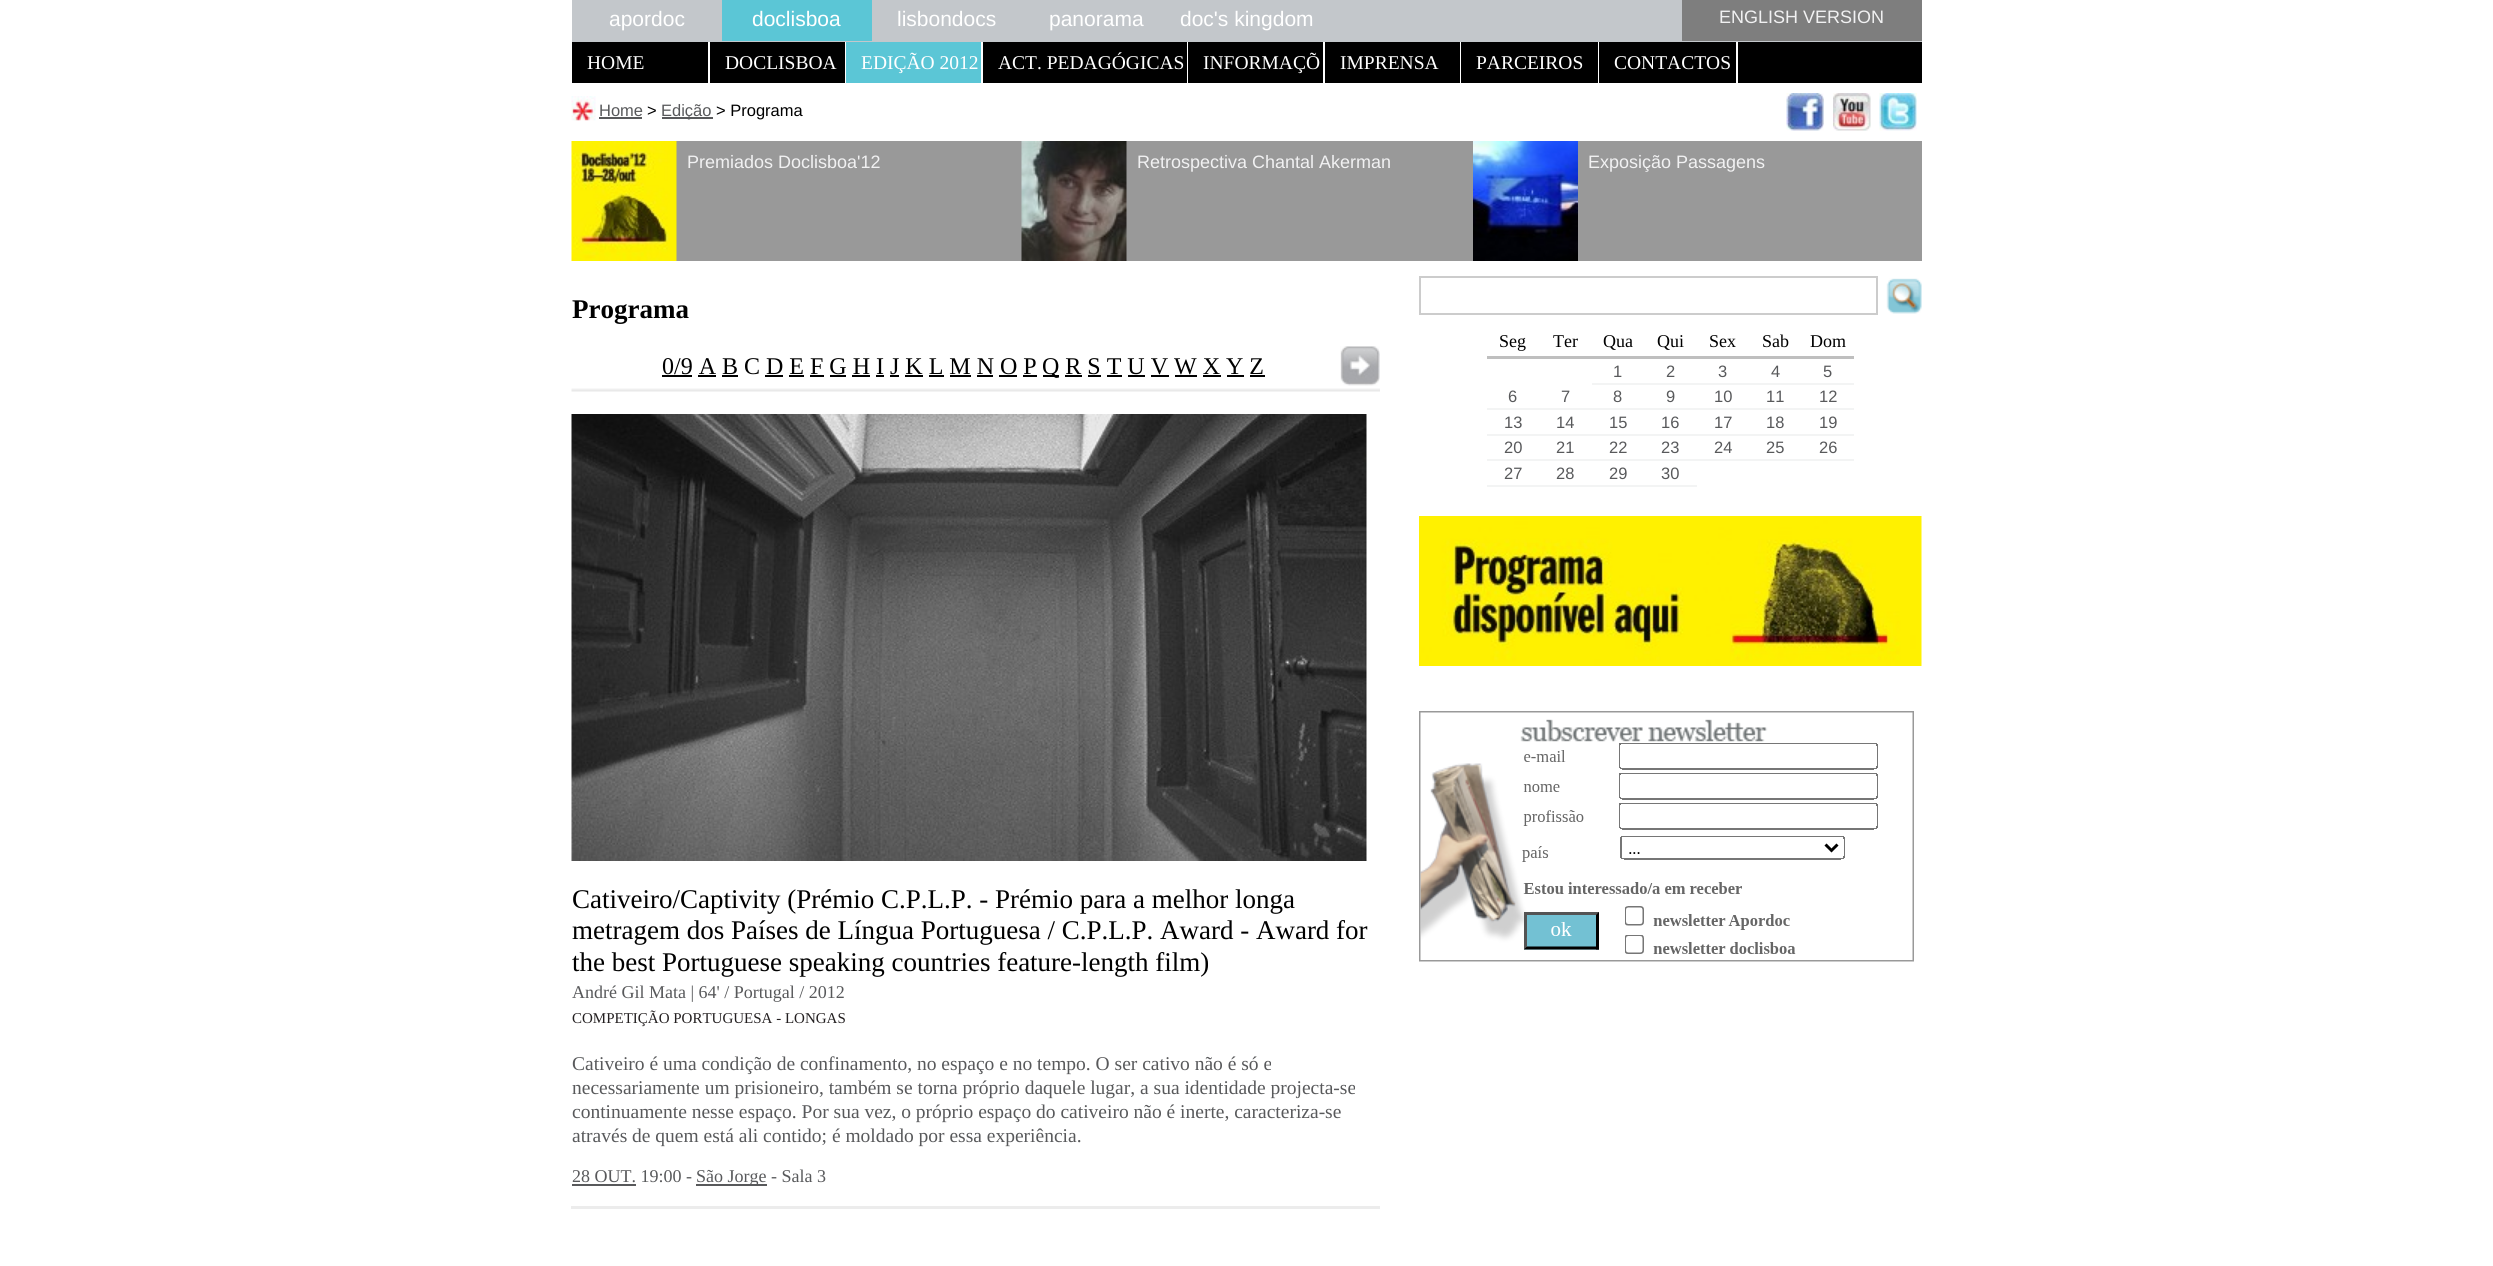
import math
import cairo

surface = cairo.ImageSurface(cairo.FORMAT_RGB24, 2493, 1266)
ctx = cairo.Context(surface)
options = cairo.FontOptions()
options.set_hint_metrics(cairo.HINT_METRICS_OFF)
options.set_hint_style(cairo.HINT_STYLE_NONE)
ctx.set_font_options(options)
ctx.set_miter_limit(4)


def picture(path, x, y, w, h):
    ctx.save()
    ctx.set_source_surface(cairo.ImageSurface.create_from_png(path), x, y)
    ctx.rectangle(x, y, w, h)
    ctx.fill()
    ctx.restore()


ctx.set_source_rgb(1, 1, 1)
ctx.paint()
ctx.set_source_rgb(0.765, 0.78, 0.796)
ctx.rectangle(572, 0, 1350, 42)
ctx.fill()
ctx.select_font_face("Liberation Sans")
ctx.set_font_size(21)
ctx.set_source_rgb(1, 1, 1)
ctx.move_to(609, 26)
ctx.show_text("apordoc")
ctx.set_source_rgb(0.357, 0.776, 0.839)
ctx.rectangle(722, 0, 150, 41)
ctx.fill()
ctx.set_source_rgb(1, 1, 1)
ctx.move_to(752, 26)
ctx.show_text("doclisboa")
ctx.move_to(897, 26)
ctx.show_text("lisbondocs")
ctx.move_to(1049, 26)
ctx.show_text("panorama")
ctx.move_to(1180, 26)
ctx.show_text("doc's kingdom")
ctx.set_source_rgb(0.494, 0.494, 0.494)
ctx.rectangle(1682, 0, 240, 41)
ctx.fill()
ctx.set_font_size(18)
ctx.set_source_rgb(0.945, 0.945, 0.949)
ctx.move_to(1719, 23)
ctx.show_text("ENGLISH VERSION")
ctx.set_source_rgb(0, 0, 0)
ctx.rectangle(1738, 42, 184, 41)
ctx.fill()
ctx.rectangle(572, 42, 136, 41)
ctx.fill()
ctx.select_font_face("Liberation Serif")
ctx.set_font_size(19.5)
ctx.set_source_rgb(1, 1, 1)
ctx.move_to(587, 69)
ctx.show_text("HOME")
ctx.set_source_rgb(0, 0, 0)
ctx.rectangle(710, 42, 135, 41)
ctx.fill()
ctx.set_source_rgb(1, 1, 1)
ctx.move_to(725, 69)
ctx.show_text("DOCLISBOA")
ctx.set_source_rgb(0.357, 0.776, 0.839)
ctx.rectangle(846, 42, 135, 41)
ctx.fill()
ctx.set_source_rgb(1, 1, 1)
ctx.move_to(861, 69)
ctx.show_text("EDIÇÃO 2012")
ctx.set_source_rgb(0, 0, 0)
ctx.rectangle(983, 42, 204, 41)
ctx.fill()
ctx.set_source_rgb(1, 1, 1)
ctx.move_to(998, 69)
ctx.show_text("ACT. PEDAGÓGICAS")
ctx.set_source_rgb(0, 0, 0)
ctx.rectangle(1188, 42, 135, 41)
ctx.fill()
ctx.set_source_rgb(1, 1, 1)
ctx.move_to(1203, 69)
ctx.show_text("INFORMAÇÕ")
ctx.set_source_rgb(0, 0, 0)
ctx.rectangle(1325, 42, 135, 41)
ctx.fill()
ctx.set_source_rgb(1, 1, 1)
ctx.move_to(1340, 69)
ctx.show_text("IMPRENSA")
ctx.set_source_rgb(0, 0, 0)
ctx.rectangle(1461, 42, 137, 41)
ctx.fill()
ctx.set_source_rgb(1, 1, 1)
ctx.move_to(1476, 69)
ctx.show_text("PARCEIROS")
ctx.set_source_rgb(0, 0, 0)
ctx.rectangle(1599, 42, 137, 41)
ctx.fill()
ctx.set_source_rgb(1, 1, 1)
ctx.move_to(1614, 69)
ctx.show_text("CONTACTOS")
picture("img1.png", 571, 96, 25, 25)
ctx.select_font_face("Liberation Sans")
ctx.set_font_size(16.5)
ctx.set_source_rgb(0.345, 0.349, 0.357)
ctx.move_to(599, 116)
ctx.show_text("Home")
ctx.rectangle(599, 117, 43, 2)
ctx.fill()
ctx.set_source_rgb(0, 0, 0)
ctx.move_to(647, 116)
ctx.show_text(">")
ctx.set_source_rgb(0.345, 0.349, 0.357)
ctx.rectangle(662, 117, 51, 2)
ctx.fill()
ctx.move_to(661, 116)
ctx.show_text("Edição")
ctx.set_source_rgb(0, 0, 0)
ctx.move_to(716, 116)
ctx.show_text("> Programa")
picture("img2.png", 1786, 93, 38, 38)
picture("img3.png", 1833, 93, 38, 38)
picture("img4.png", 1879, 93, 38, 38)
ctx.set_source_rgb(0.6, 0.6, 0.6)
ctx.rectangle(676, 141, 1246, 120)
ctx.fill()
picture("img5.png", 571, 141, 106, 120)
ctx.set_font_size(18)
ctx.set_source_rgb(0.945, 0.945, 0.949)
ctx.move_to(687, 168)
ctx.show_text("Premiados Doclisboa'12")
picture("img6.png", 1021, 141, 106, 120)
ctx.move_to(1137, 168)
ctx.show_text("Retrospectiva Chantal Akerman")
picture("img7.png", 1473, 141, 105, 120)
ctx.move_to(1588, 168)
ctx.show_text("Exposição Passagens")
ctx.select_font_face("Liberation Serif", cairo.FONT_SLANT_NORMAL, cairo.FONT_WEIGHT_BOLD)
ctx.set_font_size(27)
ctx.set_source_rgb(0, 0, 0)
ctx.move_to(572, 318)
ctx.show_text("Programa")
ctx.select_font_face("Liberation Serif")
ctx.set_font_size(24)
ctx.move_to(662, 374)
ctx.show_text("0/9 A B C D E F G H I J K L M N O P")
ctx.rectangle(662, 375, 30, 2)
ctx.fill()
ctx.rectangle(1043, 375, 16, 2)
ctx.fill()
ctx.move_to(1042, 374)
ctx.show_text("Q R S T U V W X Y Z")
ctx.rectangle(698, 375, 18, 2)
ctx.fill()
ctx.rectangle(722, 375, 16, 2)
ctx.fill()
ctx.rectangle(765, 375, 18, 2)
ctx.fill()
ctx.rectangle(789, 375, 15, 2)
ctx.fill()
ctx.rectangle(810, 375, 14, 2)
ctx.fill()
ctx.rectangle(830, 375, 16, 2)
ctx.fill()
ctx.rectangle(852, 375, 18, 2)
ctx.fill()
ctx.rectangle(876, 375, 8, 2)
ctx.fill()
ctx.rectangle(890, 375, 9, 2)
ctx.fill()
ctx.rectangle(905, 375, 18, 2)
ctx.fill()
ctx.rectangle(929, 375, 15, 2)
ctx.fill()
ctx.rectangle(950, 375, 21, 2)
ctx.fill()
ctx.rectangle(977, 375, 16, 2)
ctx.fill()
ctx.rectangle(999, 375, 18, 2)
ctx.fill()
ctx.rectangle(1023, 375, 14, 2)
ctx.fill()
ctx.rectangle(1065, 375, 17, 2)
ctx.fill()
ctx.rectangle(1088, 375, 13, 2)
ctx.fill()
ctx.rectangle(1107, 375, 15, 2)
ctx.fill()
ctx.rectangle(1128, 375, 17, 2)
ctx.fill()
ctx.rectangle(1151, 375, 18, 2)
ctx.fill()
ctx.rectangle(1175, 375, 22, 2)
ctx.fill()
ctx.rectangle(1203, 375, 18, 2)
ctx.fill()
ctx.rectangle(1227, 375, 17, 2)
ctx.fill()
ctx.rectangle(1250, 375, 15, 2)
ctx.fill()
picture("img8.png", 1340, 346, 40, 40)
picture("img9.png", 571, 388, 809, 4)
picture("img10.png", 571, 414, 796, 447)
ctx.set_font_size(27)
ctx.move_to(572, 908)
ctx.show_text("Cativeiro/Captivity (Prémio C.P.L.P. - Prémio para a melhor longa")
ctx.move_to(572, 939)
ctx.show_text("metragem dos Países de Língua Portuguesa / C.P.L.P. Award - Award for")
ctx.move_to(572, 971)
ctx.show_text("the best Portuguese speaking countries feature-length film)")
ctx.set_font_size(18)
ctx.set_source_rgb(0.345, 0.349, 0.357)
ctx.move_to(572, 998)
ctx.show_text("André Gil Mata | 64' / Portugal / 2012")
ctx.set_font_size(15)
ctx.set_source_rgb(0.137, 0.122, 0.125)
ctx.move_to(572, 1023)
ctx.show_text("COMPETIÇÃO PORTUGUESA - LONGAS")
ctx.set_font_size(19.5)
ctx.set_source_rgb(0.345, 0.349, 0.357)
ctx.move_to(572, 1070)
ctx.show_text("Cativeiro é uma condição de confinamento, no espaço e no tempo. O ser cativo não é só e")
ctx.move_to(572, 1094)
ctx.show_text("necessariamente um prisioneiro, também se torna próprio daquele lugar, a sua identidade projecta-se")
ctx.move_to(572, 1118)
ctx.show_text("continuamente nesse espaço. Por sua vez, o próprio espaço do cativeiro não é inerte, caracteriza-se")
ctx.move_to(572, 1142)
ctx.show_text("através de quem está ali contido; é moldado por essa experiência.")
ctx.set_font_size(18)
ctx.move_to(572, 1182)
ctx.show_text("28 OUT. 19:00 -")
ctx.rectangle(572, 1184, 64, 2)
ctx.fill()
ctx.rectangle(696, 1184, 71, 2)
ctx.fill()
ctx.move_to(696, 1182)
ctx.show_text("São Jorge - Sala 3")
ctx.set_source_rgb(0.925, 0.925, 0.925)
ctx.rectangle(571, 1206, 809, 3)
ctx.fill()
ctx.rectangle(1420, 277, 457, 37)
ctx.set_source_rgb(0.8, 0.8, 0.8)
ctx.stroke()
picture("img11.png", 1886, 278, 36, 36)
ctx.set_source_rgb(0.749, 0.749, 0.749)
ctx.rectangle(1487, 356, 367, 3)
ctx.fill()
ctx.set_source_rgb(0, 0, 0)
ctx.move_to(1499, 347)
ctx.show_text("Seg")
ctx.move_to(1553, 347)
ctx.show_text("Ter")
ctx.move_to(1603, 347)
ctx.show_text("Qua")
ctx.move_to(1657, 347)
ctx.show_text("Qui")
ctx.move_to(1709, 347)
ctx.show_text("Sex")
ctx.move_to(1762, 347)
ctx.show_text("Sab")
ctx.move_to(1810, 347)
ctx.show_text("Dom")
ctx.set_source_rgb(0.953, 0.957, 0.957)
ctx.rectangle(1592, 383, 262, 2)
ctx.fill()
ctx.select_font_face("Liberation Sans")
ctx.set_font_size(16.5)
ctx.set_source_rgb(0.345, 0.349, 0.357)
ctx.move_to(1613, 377)
ctx.show_text("1")
ctx.move_to(1666, 377)
ctx.show_text("2")
ctx.move_to(1718, 377)
ctx.show_text("3")
ctx.move_to(1771, 377)
ctx.show_text("4")
ctx.move_to(1823, 377)
ctx.show_text("5")
ctx.set_source_rgb(0.953, 0.957, 0.957)
ctx.rectangle(1487, 408, 367, 2)
ctx.fill()
ctx.set_source_rgb(0.345, 0.349, 0.357)
ctx.move_to(1508, 402)
ctx.show_text("6")
ctx.move_to(1561, 402)
ctx.show_text("7")
ctx.move_to(1613, 402)
ctx.show_text("8")
ctx.move_to(1666, 402)
ctx.show_text("9")
ctx.move_to(1714, 402)
ctx.show_text("10")
ctx.move_to(1766, 402)
ctx.show_text("11")
ctx.move_to(1819, 402)
ctx.show_text("12")
ctx.set_source_rgb(0.953, 0.957, 0.957)
ctx.rectangle(1487, 434, 367, 2)
ctx.fill()
ctx.set_source_rgb(0.345, 0.349, 0.357)
ctx.move_to(1504, 428)
ctx.show_text("13")
ctx.move_to(1556, 428)
ctx.show_text("14")
ctx.move_to(1609, 428)
ctx.show_text("15")
ctx.move_to(1661, 428)
ctx.show_text("16")
ctx.move_to(1714, 428)
ctx.show_text("17")
ctx.move_to(1766, 428)
ctx.show_text("18")
ctx.move_to(1819, 428)
ctx.show_text("19")
ctx.set_source_rgb(0.953, 0.957, 0.957)
ctx.rectangle(1487, 459, 367, 2)
ctx.fill()
ctx.set_source_rgb(0.345, 0.349, 0.357)
ctx.move_to(1504, 453)
ctx.show_text("20")
ctx.move_to(1556, 453)
ctx.show_text("21")
ctx.move_to(1609, 453)
ctx.show_text("22")
ctx.move_to(1661, 453)
ctx.show_text("23")
ctx.move_to(1714, 453)
ctx.show_text("24")
ctx.move_to(1766, 453)
ctx.show_text("25")
ctx.move_to(1819, 453)
ctx.show_text("26")
ctx.set_source_rgb(0.953, 0.957, 0.957)
ctx.rectangle(1487, 485, 210, 2)
ctx.fill()
ctx.set_source_rgb(0.345, 0.349, 0.357)
ctx.move_to(1504, 479)
ctx.show_text("27")
ctx.move_to(1556, 479)
ctx.show_text("28")
ctx.move_to(1609, 479)
ctx.show_text("29")
ctx.move_to(1661, 479)
ctx.show_text("30")
picture("img12.png", 1419, 516, 503, 150)
picture("img13.png", 1419, 711, 495, 251)
surface.write_to_png("page.png")
